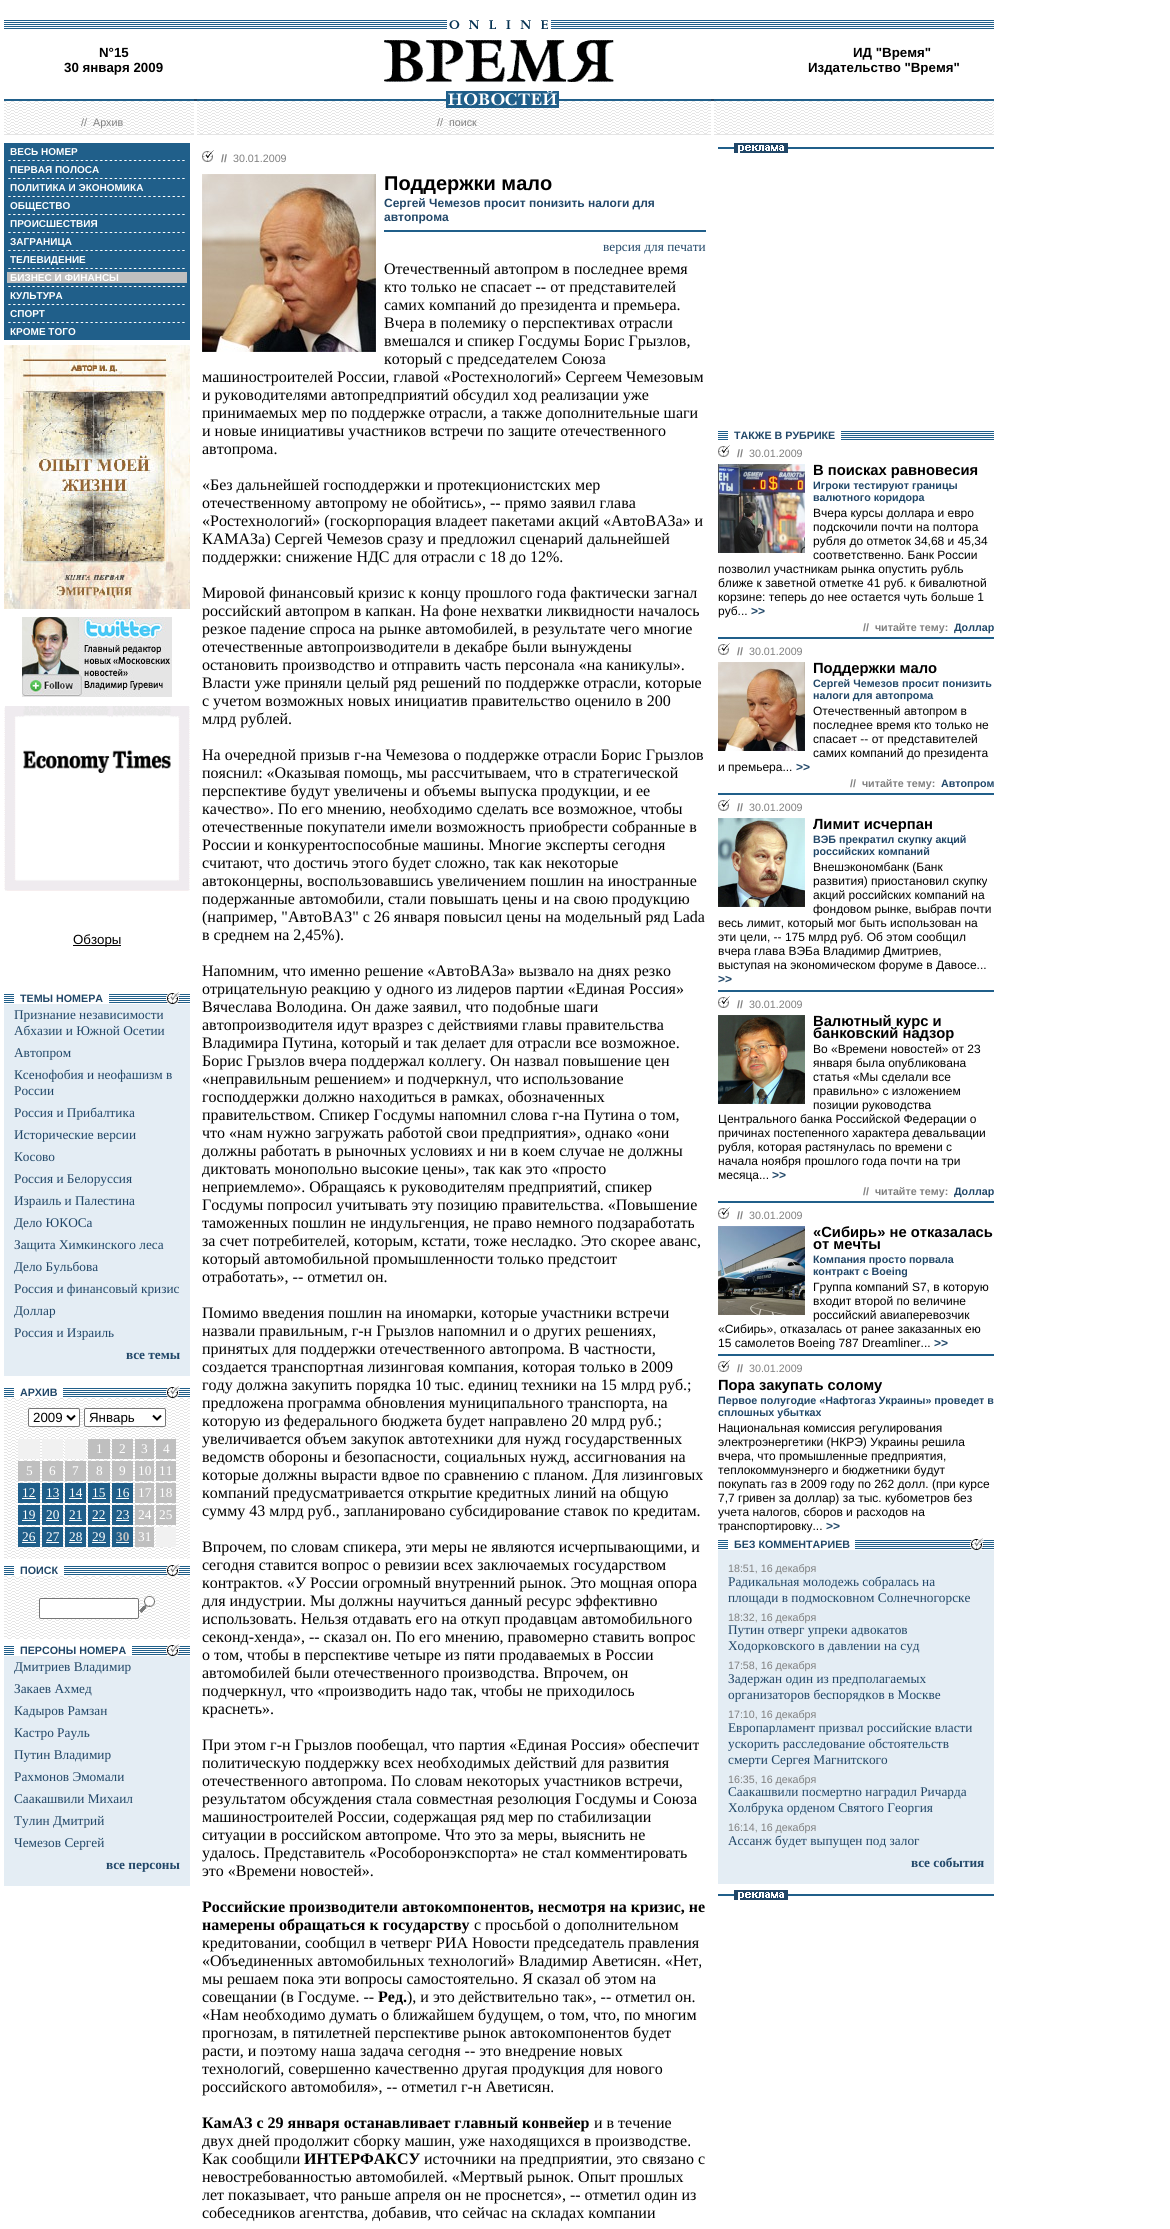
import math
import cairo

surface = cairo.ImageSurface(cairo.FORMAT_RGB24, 1170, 2229)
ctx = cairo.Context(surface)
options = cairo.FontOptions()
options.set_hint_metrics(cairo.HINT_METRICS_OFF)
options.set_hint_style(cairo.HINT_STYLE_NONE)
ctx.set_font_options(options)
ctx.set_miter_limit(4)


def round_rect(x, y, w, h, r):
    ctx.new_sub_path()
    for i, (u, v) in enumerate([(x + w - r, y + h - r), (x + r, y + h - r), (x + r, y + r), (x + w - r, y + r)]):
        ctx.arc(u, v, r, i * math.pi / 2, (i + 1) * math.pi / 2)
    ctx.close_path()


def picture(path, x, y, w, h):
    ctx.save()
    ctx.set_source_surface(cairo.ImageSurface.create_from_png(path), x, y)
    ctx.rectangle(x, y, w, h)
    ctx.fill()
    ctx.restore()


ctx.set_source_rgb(1, 1, 1)
ctx.paint()
picture("img1.png", 4, 20, 990, 9)
picture("img2.png", 447, 20, 104, 9)
ctx.select_font_face("Liberation Sans", cairo.FONT_SLANT_NORMAL, cairo.FONT_WEIGHT_BOLD)
ctx.set_font_size(13.3)
ctx.set_source_rgb(0, 0, 0)
ctx.move_to(99, 57)
ctx.show_text("N°15")
ctx.move_to(64, 72)
ctx.show_text("30 января 2009")
picture("img3.png", 384, 40, 230, 42)
ctx.move_to(853, 57)
ctx.show_text("ИД \"Время\"")
ctx.move_to(808, 72)
ctx.show_text("Издательство \"Время\"")
picture("img4.png", 4, 99, 190, 9)
ctx.set_source_rgb(0.129, 0.278, 0.408)
ctx.rectangle(194, 99, 3, 2)
ctx.fill()
picture("img5.png", 197, 99, 514, 9)
picture("img6.png", 446, 91, 113, 17)
ctx.rectangle(711, 99, 3, 2)
ctx.fill()
picture("img7.png", 714, 99, 280, 9)
picture("img8.png", 4, 108, 190, 27)
ctx.select_font_face("Liberation Sans")
ctx.set_font_size(10.7)
ctx.set_source_rgb(0.498, 0.498, 0.498)
ctx.move_to(81, 126)
ctx.show_text("//")
ctx.move_to(93, 126)
ctx.show_text("Архив")
picture("img9.png", 197, 108, 514, 27)
ctx.move_to(437, 126)
ctx.show_text("//")
ctx.move_to(449, 126)
ctx.show_text("поиск")
picture("img10.png", 714, 108, 280, 27)
ctx.set_source_rgb(0.125, 0.373, 0.541)
ctx.rectangle(4, 143, 186, 197)
ctx.fill()
ctx.select_font_face("Liberation Sans", cairo.FONT_SLANT_NORMAL, cairo.FONT_WEIGHT_BOLD)
ctx.set_font_size(10)
ctx.set_source_rgb(1, 1, 1)
ctx.move_to(10, 155)
ctx.show_text("ВЕСЬ НОМЕР")
picture("img11.png", 8, 160, 177, 1)
ctx.move_to(10, 173)
ctx.show_text("ПЕРВАЯ ПОЛОСА")
picture("img11.png", 8, 178, 177, 1)
ctx.move_to(10, 191)
ctx.show_text("ПОЛИТИКА И ЭКОНОМИКА")
picture("img11.png", 8, 196, 177, 1)
ctx.move_to(10, 209)
ctx.show_text("ОБЩЕСТВО")
picture("img11.png", 8, 214, 177, 1)
ctx.move_to(10, 227)
ctx.show_text("ПРОИСШЕСТВИЯ")
picture("img11.png", 8, 232, 177, 1)
ctx.move_to(10, 245)
ctx.show_text("ЗАГРАНИЦА")
picture("img11.png", 8, 250, 177, 1)
ctx.move_to(10, 263)
ctx.show_text("ТЕЛЕВИДЕНИЕ")
picture("img11.png", 8, 268, 177, 1)
ctx.set_source_rgb(0.749, 0.749, 0.749)
ctx.rectangle(7, 272, 180, 11)
ctx.fill()
ctx.set_source_rgb(1, 1, 1)
ctx.move_to(10, 281)
ctx.show_text("БИЗНЕС И ФИНАНСЫ")
picture("img11.png", 8, 286, 177, 1)
ctx.move_to(10, 299)
ctx.show_text("КУЛЬТУРА")
picture("img11.png", 8, 304, 177, 1)
ctx.move_to(10, 317)
ctx.show_text("СПОРТ")
picture("img11.png", 8, 322, 177, 1)
ctx.move_to(10, 335)
ctx.show_text("КРОМЕ ТОГО")
picture("img12.png", 4, 345, 186, 264)
picture("img13.png", 22, 617, 150, 80)
picture("img14.png", 4, 706, 186, 185)
ctx.set_source_rgb(0, 0, 0)
ctx.rectangle(73, 945, 48, 1)
ctx.fill()
ctx.select_font_face("Liberation Sans")
ctx.set_font_size(13.3)
ctx.move_to(73, 944)
ctx.show_text("Обзоры")
picture("img15.png", 4, 994, 186, 9)
ctx.set_source_rgb(1, 1, 1)
ctx.rectangle(14, 994, 95, 9)
ctx.fill()
ctx.select_font_face("Liberation Sans", cairo.FONT_SLANT_NORMAL, cairo.FONT_WEIGHT_BOLD)
ctx.set_font_size(10.7)
ctx.set_source_rgb(0.129, 0.278, 0.408)
ctx.move_to(20, 1002)
ctx.show_text("ТЕМЫ НОМЕРА")
picture("img16.png", 166, 992, 14, 12)
ctx.set_source_rgb(0.894, 0.929, 0.957)
ctx.rectangle(4, 1004, 186, 372)
ctx.fill()
ctx.select_font_face("Liberation Serif")
ctx.set_font_size(13.3)
ctx.set_source_rgb(0.129, 0.278, 0.408)
ctx.move_to(14, 1019)
ctx.show_text("Признание независимости")
ctx.move_to(14, 1035)
ctx.show_text("Абхазии и Южной Осетии")
ctx.move_to(14, 1057)
ctx.show_text("Автопром")
ctx.move_to(14, 1079)
ctx.show_text("Ксенофобия и неофашизм в")
ctx.move_to(14, 1095)
ctx.show_text("России")
ctx.move_to(14, 1117)
ctx.show_text("Россия и Прибалтика")
ctx.move_to(14, 1139)
ctx.show_text("Исторические версии")
ctx.move_to(14, 1161)
ctx.show_text("Косово")
ctx.move_to(14, 1183)
ctx.show_text("Россия и Белоруссия")
ctx.move_to(14, 1205)
ctx.show_text("Израиль и Палестина")
ctx.move_to(14, 1227)
ctx.show_text("Дело ЮКОСа")
ctx.move_to(14, 1249)
ctx.show_text("Защита Химкинского леса")
ctx.move_to(14, 1271)
ctx.show_text("Дело Бульбова")
ctx.move_to(14, 1293)
ctx.show_text("Россия и финансовый кризис")
ctx.move_to(14, 1315)
ctx.show_text("Доллар")
ctx.move_to(14, 1337)
ctx.show_text("Россия и Израиль")
ctx.select_font_face("Liberation Serif", cairo.FONT_SLANT_NORMAL, cairo.FONT_WEIGHT_BOLD)
ctx.move_to(126, 1359)
ctx.show_text("все темы")
picture("img15.png", 4, 1388, 186, 9)
ctx.set_source_rgb(1, 1, 1)
ctx.rectangle(14, 1388, 49, 9)
ctx.fill()
ctx.select_font_face("Liberation Sans", cairo.FONT_SLANT_NORMAL, cairo.FONT_WEIGHT_BOLD)
ctx.set_font_size(10.7)
ctx.set_source_rgb(0.129, 0.278, 0.408)
ctx.move_to(20, 1396)
ctx.show_text("АРХИВ")
picture("img16.png", 166, 1386, 14, 12)
picture("img17.png", 4, 1398, 186, 161)
ctx.set_source_rgb(1, 1, 1)
round_rect(28.5, 1408.5, 51, 18, 1.5)
ctx.fill_preserve()
ctx.set_source_rgb(0.463, 0.463, 0.463)
ctx.set_line_width(1)
ctx.stroke()
ctx.new_path()
ctx.move_to(67, 1415.5)
ctx.line_to(71, 1419.5)
ctx.line_to(75, 1415.5)
ctx.set_source_rgb(0, 0, 0)
ctx.set_line_width(2)
ctx.stroke()
ctx.select_font_face("Liberation Sans")
ctx.set_font_size(13.3)
ctx.move_to(33, 1422)
ctx.show_text("2009")
ctx.set_source_rgb(1, 1, 1)
round_rect(84.5, 1408.5, 81, 18, 1.5)
ctx.fill_preserve()
ctx.set_source_rgb(0.463, 0.463, 0.463)
ctx.set_line_width(1)
ctx.stroke()
ctx.new_path()
ctx.move_to(153, 1415.5)
ctx.line_to(157, 1419.5)
ctx.line_to(161, 1415.5)
ctx.set_source_rgb(0, 0, 0)
ctx.set_line_width(2)
ctx.stroke()
ctx.move_to(89, 1422)
ctx.show_text("Январь")
ctx.set_source_rgb(0.945, 0.945, 0.945)
ctx.rectangle(18, 1439, 22, 20)
ctx.fill()
ctx.rectangle(42, 1439, 21, 20)
ctx.fill()
ctx.rectangle(65, 1439, 21, 20)
ctx.fill()
ctx.set_source_rgb(0.749, 0.749, 0.749)
ctx.rectangle(88, 1439, 22, 20)
ctx.fill()
ctx.select_font_face("Liberation Serif")
ctx.set_source_rgb(1, 1, 1)
ctx.move_to(96, 1453)
ctx.show_text("1")
ctx.set_source_rgb(0.749, 0.749, 0.749)
ctx.rectangle(112, 1439, 21, 20)
ctx.fill()
ctx.set_source_rgb(1, 1, 1)
ctx.move_to(119, 1453)
ctx.show_text("2")
ctx.set_source_rgb(0.749, 0.749, 0.749)
ctx.rectangle(135, 1439, 19, 20)
ctx.fill()
ctx.set_source_rgb(1, 1, 1)
ctx.move_to(141, 1453)
ctx.show_text("3")
ctx.set_source_rgb(0.749, 0.749, 0.749)
ctx.rectangle(156, 1439, 20, 20)
ctx.fill()
ctx.set_source_rgb(1, 1, 1)
ctx.move_to(163, 1453)
ctx.show_text("4")
ctx.set_source_rgb(0.749, 0.749, 0.749)
ctx.rectangle(18, 1461, 22, 20)
ctx.fill()
ctx.set_source_rgb(1, 1, 1)
ctx.move_to(26, 1475)
ctx.show_text("5")
ctx.set_source_rgb(0.749, 0.749, 0.749)
ctx.rectangle(42, 1461, 21, 20)
ctx.fill()
ctx.set_source_rgb(1, 1, 1)
ctx.move_to(49, 1475)
ctx.show_text("6")
ctx.set_source_rgb(0.749, 0.749, 0.749)
ctx.rectangle(65, 1461, 21, 20)
ctx.fill()
ctx.set_source_rgb(1, 1, 1)
ctx.move_to(72, 1475)
ctx.show_text("7")
ctx.set_source_rgb(0.749, 0.749, 0.749)
ctx.rectangle(88, 1461, 22, 20)
ctx.fill()
ctx.set_source_rgb(1, 1, 1)
ctx.move_to(96, 1475)
ctx.show_text("8")
ctx.set_source_rgb(0.749, 0.749, 0.749)
ctx.rectangle(112, 1461, 21, 20)
ctx.fill()
ctx.set_source_rgb(1, 1, 1)
ctx.move_to(119, 1475)
ctx.show_text("9")
ctx.set_source_rgb(0.749, 0.749, 0.749)
ctx.rectangle(135, 1461, 19, 20)
ctx.fill()
ctx.set_source_rgb(1, 1, 1)
ctx.move_to(138, 1475)
ctx.show_text("10")
ctx.set_source_rgb(0.749, 0.749, 0.749)
ctx.rectangle(156, 1461, 20, 20)
ctx.fill()
ctx.set_source_rgb(1, 1, 1)
ctx.move_to(159, 1475)
ctx.show_text("11")
ctx.set_source_rgb(0.125, 0.373, 0.541)
ctx.rectangle(18, 1483, 22, 20)
ctx.fill()
ctx.set_source_rgb(1, 1, 1)
ctx.move_to(22, 1497)
ctx.show_text("12")
ctx.rectangle(22, 1498, 14, 1)
ctx.fill()
ctx.set_source_rgb(0.125, 0.373, 0.541)
ctx.rectangle(42, 1483, 21, 20)
ctx.fill()
ctx.set_source_rgb(1, 1, 1)
ctx.move_to(46, 1497)
ctx.show_text("13")
ctx.rectangle(46, 1498, 13, 1)
ctx.fill()
ctx.set_source_rgb(0.125, 0.373, 0.541)
ctx.rectangle(65, 1483, 21, 20)
ctx.fill()
ctx.set_source_rgb(1, 1, 1)
ctx.move_to(69, 1497)
ctx.show_text("14")
ctx.rectangle(69, 1498, 13, 1)
ctx.fill()
ctx.set_source_rgb(0.125, 0.373, 0.541)
ctx.rectangle(88, 1483, 22, 20)
ctx.fill()
ctx.set_source_rgb(1, 1, 1)
ctx.move_to(92, 1497)
ctx.show_text("15")
ctx.rectangle(92, 1498, 14, 1)
ctx.fill()
ctx.set_source_rgb(0.125, 0.373, 0.541)
ctx.rectangle(112, 1483, 21, 20)
ctx.fill()
ctx.set_source_rgb(1, 1, 1)
ctx.move_to(116, 1497)
ctx.show_text("16")
ctx.rectangle(116, 1498, 13, 1)
ctx.fill()
ctx.set_source_rgb(0.749, 0.749, 0.749)
ctx.rectangle(135, 1483, 19, 20)
ctx.fill()
ctx.set_source_rgb(1, 1, 1)
ctx.move_to(138, 1497)
ctx.show_text("17")
ctx.set_source_rgb(0.749, 0.749, 0.749)
ctx.rectangle(156, 1483, 20, 20)
ctx.fill()
ctx.set_source_rgb(1, 1, 1)
ctx.move_to(159, 1497)
ctx.show_text("18")
ctx.set_source_rgb(0.125, 0.373, 0.541)
ctx.rectangle(18, 1505, 22, 20)
ctx.fill()
ctx.set_source_rgb(1, 1, 1)
ctx.move_to(22, 1519)
ctx.show_text("19")
ctx.rectangle(22, 1520, 14, 1)
ctx.fill()
ctx.set_source_rgb(0.125, 0.373, 0.541)
ctx.rectangle(42, 1505, 21, 20)
ctx.fill()
ctx.set_source_rgb(1, 1, 1)
ctx.move_to(46, 1519)
ctx.show_text("20")
ctx.rectangle(46, 1520, 13, 1)
ctx.fill()
ctx.set_source_rgb(0.125, 0.373, 0.541)
ctx.rectangle(65, 1505, 21, 20)
ctx.fill()
ctx.set_source_rgb(1, 1, 1)
ctx.move_to(69, 1519)
ctx.show_text("21")
ctx.rectangle(69, 1520, 13, 1)
ctx.fill()
ctx.set_source_rgb(0.125, 0.373, 0.541)
ctx.rectangle(88, 1505, 22, 20)
ctx.fill()
ctx.set_source_rgb(1, 1, 1)
ctx.move_to(92, 1519)
ctx.show_text("22")
ctx.rectangle(92, 1520, 14, 1)
ctx.fill()
ctx.set_source_rgb(0.125, 0.373, 0.541)
ctx.rectangle(112, 1505, 21, 20)
ctx.fill()
ctx.set_source_rgb(1, 1, 1)
ctx.move_to(116, 1519)
ctx.show_text("23")
ctx.rectangle(116, 1520, 13, 1)
ctx.fill()
ctx.set_source_rgb(0.749, 0.749, 0.749)
ctx.rectangle(135, 1505, 19, 20)
ctx.fill()
ctx.set_source_rgb(1, 1, 1)
ctx.move_to(138, 1519)
ctx.show_text("24")
ctx.set_source_rgb(0.749, 0.749, 0.749)
ctx.rectangle(156, 1505, 20, 20)
ctx.fill()
ctx.set_source_rgb(1, 1, 1)
ctx.move_to(159, 1519)
ctx.show_text("25")
ctx.set_source_rgb(0.125, 0.373, 0.541)
ctx.rectangle(18, 1527, 22, 20)
ctx.fill()
ctx.set_source_rgb(1, 1, 1)
ctx.move_to(22, 1541)
ctx.show_text("26")
ctx.rectangle(22, 1542, 14, 1)
ctx.fill()
ctx.set_source_rgb(0.125, 0.373, 0.541)
ctx.rectangle(42, 1527, 21, 20)
ctx.fill()
ctx.set_source_rgb(1, 1, 1)
ctx.move_to(46, 1541)
ctx.show_text("27")
ctx.rectangle(46, 1542, 13, 1)
ctx.fill()
ctx.set_source_rgb(0.125, 0.373, 0.541)
ctx.rectangle(65, 1527, 21, 20)
ctx.fill()
ctx.set_source_rgb(1, 1, 1)
ctx.move_to(69, 1541)
ctx.show_text("28")
ctx.rectangle(69, 1542, 13, 1)
ctx.fill()
ctx.set_source_rgb(0.125, 0.373, 0.541)
ctx.rectangle(88, 1527, 22, 20)
ctx.fill()
ctx.set_source_rgb(1, 1, 1)
ctx.move_to(92, 1541)
ctx.show_text("29")
ctx.rectangle(92, 1542, 14, 1)
ctx.fill()
ctx.set_source_rgb(0.125, 0.373, 0.541)
ctx.rectangle(112, 1527, 21, 20)
ctx.fill()
ctx.select_font_face("Liberation Serif", cairo.FONT_SLANT_NORMAL, cairo.FONT_WEIGHT_BOLD)
ctx.set_source_rgb(0.749, 0.749, 0.749)
ctx.move_to(116, 1541)
ctx.show_text("30")
ctx.set_source_rgb(1, 1, 1)
ctx.rectangle(116, 1542, 13, 1)
ctx.fill()
ctx.set_source_rgb(0.749, 0.749, 0.749)
ctx.rectangle(135, 1527, 19, 20)
ctx.fill()
ctx.select_font_face("Liberation Serif")
ctx.set_source_rgb(1, 1, 1)
ctx.move_to(138, 1541)
ctx.show_text("31")
ctx.set_source_rgb(0.945, 0.945, 0.945)
ctx.rectangle(156, 1527, 20, 20)
ctx.fill()
picture("img15.png", 4, 1566, 186, 9)
ctx.set_source_rgb(1, 1, 1)
ctx.rectangle(14, 1566, 50, 9)
ctx.fill()
ctx.select_font_face("Liberation Sans", cairo.FONT_SLANT_NORMAL, cairo.FONT_WEIGHT_BOLD)
ctx.set_font_size(10.7)
ctx.set_source_rgb(0.129, 0.278, 0.408)
ctx.move_to(20, 1574)
ctx.show_text("ПОИСК")
picture("img16.png", 166, 1564, 14, 12)
picture("img18.png", 4, 1576, 186, 63)
ctx.set_source_rgb(1, 1, 1)
round_rect(39.5, 1598.5, 99, 20, 1.5)
ctx.fill_preserve()
ctx.set_source_rgb(0.463, 0.463, 0.463)
ctx.set_line_width(1)
ctx.stroke()
picture("img19.png", 139, 1596, 16, 17)
picture("img15.png", 4, 1646, 186, 9)
ctx.set_source_rgb(1, 1, 1)
ctx.rectangle(14, 1646, 118, 9)
ctx.fill()
ctx.set_source_rgb(0.129, 0.278, 0.408)
ctx.move_to(20, 1654)
ctx.show_text("ПЕРСОНЫ НОМЕРА")
picture("img16.png", 166, 1644, 14, 12)
ctx.set_source_rgb(0.894, 0.929, 0.957)
ctx.rectangle(4, 1656, 186, 230)
ctx.fill()
ctx.select_font_face("Liberation Serif")
ctx.set_font_size(13.3)
ctx.set_source_rgb(0.129, 0.278, 0.408)
ctx.move_to(14, 1671)
ctx.show_text("Дмитриев Владимир")
ctx.move_to(14, 1693)
ctx.show_text("Закаев Ахмед")
ctx.move_to(14, 1715)
ctx.show_text("Кадыров Рамзан")
ctx.move_to(14, 1737)
ctx.show_text("Кастро Рауль")
ctx.move_to(14, 1759)
ctx.show_text("Путин Владимир")
ctx.move_to(14, 1781)
ctx.show_text("Рахмонов Эмомали")
ctx.move_to(14, 1803)
ctx.show_text("Саакашвили Михаил")
ctx.move_to(14, 1825)
ctx.show_text("Тулин Дмитрий")
ctx.move_to(14, 1847)
ctx.show_text("Чемезов Сергей")
ctx.select_font_face("Liberation Serif", cairo.FONT_SLANT_NORMAL, cairo.FONT_WEIGHT_BOLD)
ctx.move_to(106, 1869)
ctx.show_text("все персоны")
picture("img20.png", 202, 150, 12, 12)
ctx.select_font_face("Liberation Sans", cairo.FONT_SLANT_NORMAL, cairo.FONT_WEIGHT_BOLD)
ctx.set_font_size(10.7)
ctx.set_source_rgb(0.498, 0.498, 0.498)
ctx.move_to(221, 162)
ctx.show_text("//")
ctx.select_font_face("Liberation Sans")
ctx.move_to(233, 162)
ctx.show_text("30.01.2009")
picture("img21.png", 202, 174, 174, 178)
ctx.select_font_face("Liberation Sans", cairo.FONT_SLANT_NORMAL, cairo.FONT_WEIGHT_BOLD)
ctx.set_font_size(20)
ctx.set_source_rgb(0, 0, 0)
ctx.move_to(384, 190)
ctx.show_text("Поддержки мало")
ctx.set_font_size(12)
ctx.set_source_rgb(0.129, 0.278, 0.408)
ctx.move_to(384, 207)
ctx.show_text("Сергей Чемезов просит понизить налоги для")
ctx.move_to(384, 221)
ctx.show_text("автопрома")
ctx.set_source_rgb(0.125, 0.373, 0.541)
ctx.rectangle(384, 230, 322, 2)
ctx.fill()
ctx.select_font_face("Liberation Serif")
ctx.set_font_size(13.3)
ctx.set_source_rgb(0.129, 0.278, 0.408)
ctx.move_to(603, 251)
ctx.show_text("версия для печати")
ctx.set_font_size(16)
ctx.set_source_rgb(0, 0, 0)
ctx.move_to(384, 274)
ctx.show_text("Отечественный автопром в последнее время")
ctx.move_to(384, 292)
ctx.show_text("кто только не спасает -- от представителей")
ctx.move_to(384, 310)
ctx.show_text("самих компаний до президента и премьера.")
ctx.move_to(384, 328)
ctx.show_text("Вчера в полемику о перспективах отрасли")
ctx.move_to(384, 346)
ctx.show_text("вмешался и спикер Госдумы Борис Грызлов,")
ctx.move_to(384, 364)
ctx.show_text("который с председателем Союза")
ctx.move_to(202, 382)
ctx.show_text("машиностроителей России, главой «Ростехнологий» Сергеем Чемезовым")
ctx.move_to(202, 400)
ctx.show_text("и руководителями автопредприятий обсудил ход реализации уже")
ctx.move_to(202, 418)
ctx.show_text("принимаемых мер по поддержке отрасли, а также дополнительные шаги")
ctx.move_to(202, 436)
ctx.show_text("и новые инициативы участников встречи по защите отечественного")
ctx.move_to(202, 454)
ctx.show_text("автопрома.")
ctx.move_to(202, 490)
ctx.show_text("«Без дальнейшей господдержки и протекционистских мер")
ctx.move_to(202, 508)
ctx.show_text("отечественному автопрому не обойтись», -- прямо заявил глава")
ctx.move_to(202, 526)
ctx.show_text("«Ростехнологий» (госкорпорация владеет пакетами акций «АвтоВАЗа» и")
ctx.move_to(202, 544)
ctx.show_text("КАМАЗа) Сергей Чемезов сразу и предложил сценарий дальнейшей")
ctx.move_to(202, 562)
ctx.show_text("поддержки: снижение НДС для отрасли с 18 до 12%.")
ctx.move_to(202, 598)
ctx.show_text("Мировой финансовый кризис к концу прошлого года фактически загнал")
ctx.move_to(202, 616)
ctx.show_text("российский автопром в капкан. На фоне нехватки ликвидности началось")
ctx.move_to(202, 634)
ctx.show_text("резкое падение спроса на рынке автомобилей, в результате чего многие")
ctx.move_to(202, 652)
ctx.show_text("отечественные автопроизводители в декабре были вынуждены")
ctx.move_to(202, 670)
ctx.show_text("остановить производство и отправить часть персонала «на каникулы».")
ctx.move_to(202, 688)
ctx.show_text("Власти уже приняли целый ряд решений по поддержке отрасли, которые")
ctx.move_to(202, 706)
ctx.show_text("с учетом возможных новых инициатив правительство оценило в 200")
ctx.move_to(202, 724)
ctx.show_text("млрд рублей.")
ctx.move_to(202, 760)
ctx.show_text("На очередной призыв г-на Чемезова о поддержке отрасли Борис Грызлов")
ctx.move_to(202, 778)
ctx.show_text("пояснил: «Оказывая помощь, мы рассчитываем, что в стратегической")
ctx.move_to(202, 796)
ctx.show_text("перспективе будут увеличены и объемы выпуска продукции, и ее")
ctx.move_to(202, 814)
ctx.show_text("качество». По его мнению, необходимо сделать все возможное, чтобы")
ctx.move_to(202, 832)
ctx.show_text("отечественные покупатели имели возможность приобрести собранные в")
ctx.move_to(202, 850)
ctx.show_text("России и конкурентоспособные машины. Многие эксперты сегодня")
ctx.move_to(202, 868)
ctx.show_text("считают, что достичь этого будет сложно, так как некоторые")
ctx.move_to(202, 886)
ctx.show_text("автоконцерны, воспользовавшись увеличением пошлин на иностранные")
ctx.move_to(202, 904)
ctx.show_text("подержанные автомобили, стали повышать цены и на свою продукцию")
ctx.move_to(202, 922)
ctx.show_text("(например, \"АвтоВАЗ\" с 26 января повысил цены на модельный ряд Lada")
ctx.move_to(202, 940)
ctx.show_text("в среднем на 2,45%).")
ctx.move_to(202, 976)
ctx.show_text("Напомним, что именно решение «АвтоВАЗа» вызвало на днях резко")
ctx.move_to(202, 994)
ctx.show_text("отрицательную реакцию у одного из лидеров партии «Единая Россия»")
ctx.move_to(202, 1012)
ctx.show_text("Вячеслава Володина. Он даже заявил, что подобные шаги")
ctx.move_to(202, 1030)
ctx.show_text("автопроизводителя идут вразрез с действиями главы правительства")
ctx.move_to(202, 1048)
ctx.show_text("Владимира Путина, который и так делает для отрасли все возможное.")
ctx.move_to(202, 1066)
ctx.show_text("Борис Грызлов вчера поддержал коллегу. Он назвал повышение цен")
ctx.move_to(202, 1084)
ctx.show_text("«неправильным решением» и подчеркнул, что использование")
ctx.move_to(202, 1102)
ctx.show_text("господдержки должно находиться в рамках, обозначенных")
ctx.move_to(202, 1120)
ctx.show_text("правительством. Спикер Госдумы напомнил слова г-на Путина о том,")
ctx.move_to(202, 1138)
ctx.show_text("что «нам нужно загружать работой свои предприятия», однако «они")
ctx.move_to(202, 1156)
ctx.show_text("должны работать в рыночных условиях и ни в коем случае не должны")
ctx.move_to(202, 1174)
ctx.show_text("диктовать монопольно высокие цены», так как это «просто")
ctx.move_to(202, 1192)
ctx.show_text("неприемлемо». Обращаясь к руководителям предприятий, спикер")
ctx.move_to(202, 1210)
ctx.show_text("Госдумы попросил учитывать эту позицию правительства. «Повышение")
ctx.move_to(202, 1228)
ctx.show_text("таможенных пошлин не индульгенция, не право немного подзаработать")
ctx.move_to(202, 1246)
ctx.show_text("за счет потребителей, которым, кстати, тоже несладко. Это скорее аванс,")
ctx.move_to(202, 1264)
ctx.show_text("который автомобильной промышленности только предстоит")
ctx.move_to(202, 1282)
ctx.show_text("отработать», -- отметил он.")
ctx.move_to(202, 1318)
ctx.show_text("Помимо введения пошлин на иномарки, которые участники встречи")
ctx.move_to(202, 1336)
ctx.show_text("назвали правильным, г-н Грызлов напомнил и о других решениях,")
ctx.move_to(202, 1354)
ctx.show_text("принятых для поддержки отечественного автопрома. В частности,")
ctx.move_to(202, 1372)
ctx.show_text("создается транспортная лизинговая компания, которая только в 2009")
ctx.move_to(202, 1390)
ctx.show_text("году должна закупить порядка 10 тыс. единиц техники на 15 млрд руб.;")
ctx.move_to(202, 1408)
ctx.show_text("предложена программа обновления муниципального транспорта, на")
ctx.move_to(202, 1426)
ctx.show_text("которую из федерального бюджета будет направлено 20 млрд руб.;")
ctx.move_to(202, 1444)
ctx.show_text("увеличивается объем закупок автотехники для нужд государственных")
ctx.move_to(202, 1462)
ctx.show_text("ведомств обороны и безопасности, социальных нужд, ассигнования на")
ctx.move_to(202, 1480)
ctx.show_text("которые должны вырасти вдвое по сравнению с планом. Для лизинговых")
ctx.move_to(202, 1498)
ctx.show_text("компаний предусматривается открытие кредитных линий на общую")
ctx.move_to(202, 1516)
ctx.show_text("сумму 43 млрд руб., запланировано субсидирование ставок по кредитам.")
ctx.move_to(202, 1552)
ctx.show_text("Впрочем, по словам спикера, эти меры не являются исчерпывающими, и")
ctx.move_to(202, 1570)
ctx.show_text("сегодня ставится вопрос о ревизии всех заключаемых государством")
ctx.move_to(202, 1588)
ctx.show_text("контрактов. «У России огромный внутренний рынок. Это мощная опора")
ctx.move_to(202, 1606)
ctx.show_text("для индустрии. Мы должны научиться данный ресурс эффективно")
ctx.move_to(202, 1624)
ctx.show_text("использовать. Нельзя отдавать его на откуп продавцам автомобильного")
ctx.move_to(202, 1642)
ctx.show_text("секонд-хенда», -- сказал он. По его мнению, правомерно ставить вопрос")
ctx.move_to(202, 1660)
ctx.show_text("о том, чтобы в перспективе четыре из пяти продаваемых в России")
ctx.move_to(202, 1678)
ctx.show_text("автомобилей были отечественного производства. Впрочем, он")
ctx.move_to(202, 1696)
ctx.show_text("подчеркнул, что «производить надо так, чтобы не приходилось")
ctx.move_to(202, 1714)
ctx.show_text("краснеть».")
ctx.move_to(202, 1750)
ctx.show_text("При этом г-н Грызлов пообещал, что партия «Единая Россия» обеспечит")
ctx.move_to(202, 1768)
ctx.show_text("политическую поддержку всех необходимых действий для развития")
ctx.move_to(202, 1786)
ctx.show_text("отечественного автопрома. По словам некоторых участников встречи,")
ctx.move_to(202, 1804)
ctx.show_text("результатом обсуждения стала совместная резолюция Госдумы и Союза")
ctx.move_to(202, 1822)
ctx.show_text("машиностроителей России, содержащая ряд мер по стабилизации")
ctx.move_to(202, 1840)
ctx.show_text("ситуации в российском автопроме. Что это за меры, выяснить не")
ctx.move_to(202, 1858)
ctx.show_text("удалось. Представитель «Рособоронэкспорта» не стал комментировать")
ctx.move_to(202, 1876)
ctx.show_text("это «Времени новостей».")
ctx.select_font_face("Liberation Serif", cairo.FONT_SLANT_NORMAL, cairo.FONT_WEIGHT_BOLD)
ctx.move_to(202, 1912)
ctx.show_text("Российские производители автокомпонентов, несмотря на кризис, не")
ctx.move_to(202, 1930)
ctx.show_text("намерены обращаться к государству")
ctx.select_font_face("Liberation Serif")
ctx.move_to(474, 1930)
ctx.show_text("с просьбой о дополнительном")
ctx.move_to(202, 1948)
ctx.show_text("кредитовании, сообщил в четверг РИА Новости председатель правления")
ctx.move_to(202, 1966)
ctx.show_text("«Объединенных автомобильных технологий» Владимир Аветисян. «Нет,")
ctx.move_to(202, 1984)
ctx.show_text("мы решаем пока эти вопросы самостоятельно. Я сказал об этом на")
ctx.move_to(202, 2002)
ctx.show_text("совещании (в Госдуме. --")
ctx.select_font_face("Liberation Serif", cairo.FONT_SLANT_NORMAL, cairo.FONT_WEIGHT_BOLD)
ctx.move_to(378, 2002)
ctx.show_text("Ред.")
ctx.select_font_face("Liberation Serif")
ctx.move_to(407, 2002)
ctx.show_text("), и это действительно так», -- отметил он.")
ctx.move_to(202, 2020)
ctx.show_text("«Нам необходимо думать о ближайшем будущем, о том, что, по многим")
ctx.move_to(202, 2038)
ctx.show_text("прогнозам, в пятилетней перспективе рынок автокомпонентов будет")
ctx.move_to(202, 2056)
ctx.show_text("расти, и поэтому наша задача сегодня -- это внедрение новых")
ctx.move_to(202, 2074)
ctx.show_text("технологий, совершенно качественно другая продукция для нового")
ctx.move_to(202, 2092)
ctx.show_text("российского автомобиля», -- отметил г-н Аветисян.")
ctx.select_font_face("Liberation Serif", cairo.FONT_SLANT_NORMAL, cairo.FONT_WEIGHT_BOLD)
ctx.move_to(202, 2128)
ctx.show_text("КамАЗ с 29 января останавливает главный конвейер")
ctx.select_font_face("Liberation Serif")
ctx.move_to(594, 2128)
ctx.show_text("и в течение")
ctx.move_to(202, 2146)
ctx.show_text("двух дней продолжит сборку машин, уже находящихся в производстве.")
ctx.move_to(202, 2164)
ctx.show_text("Как сообщили")
ctx.select_font_face("Liberation Serif", cairo.FONT_SLANT_NORMAL, cairo.FONT_WEIGHT_BOLD)
ctx.move_to(304, 2164)
ctx.show_text("ИНТЕРФАКСУ")
ctx.select_font_face("Liberation Serif")
ctx.move_to(424, 2164)
ctx.show_text("источники на предприятии, это связано с")
ctx.move_to(202, 2182)
ctx.show_text("невостребованностью автомобилей. «Мертвый рынок. Опыт прошлых")
ctx.move_to(202, 2200)
ctx.show_text("лет показывает, что раньше апреля он не проснется», -- отметил один из")
ctx.move_to(202, 2218)
ctx.show_text("собеседников агентства, добавив, что сейчас на складах компании")
ctx.set_source_rgb(0.125, 0.373, 0.541)
ctx.rectangle(718, 147, 276, 2)
ctx.fill()
picture("img22.png", 734, 143, 54, 10)
picture("img23.png", 718, 431, 276, 9)
ctx.set_source_rgb(1, 1, 1)
ctx.rectangle(728, 431, 113, 9)
ctx.fill()
ctx.select_font_face("Liberation Sans", cairo.FONT_SLANT_NORMAL, cairo.FONT_WEIGHT_BOLD)
ctx.set_font_size(10.7)
ctx.set_source_rgb(0.129, 0.278, 0.408)
ctx.move_to(734, 439)
ctx.show_text("ТАКЖЕ В РУБРИКЕ")
picture("img20.png", 718, 445, 12, 12)
ctx.set_source_rgb(0.498, 0.498, 0.498)
ctx.move_to(737, 457)
ctx.show_text("//")
ctx.select_font_face("Liberation Sans")
ctx.move_to(749, 457)
ctx.show_text("30.01.2009")
picture("img24.png", 718, 464, 87, 89)
ctx.select_font_face("Liberation Sans", cairo.FONT_SLANT_NORMAL, cairo.FONT_WEIGHT_BOLD)
ctx.set_font_size(14.75)
ctx.set_source_rgb(0, 0, 0)
ctx.move_to(813, 475)
ctx.show_text("В поисках равновесия")
ctx.set_font_size(10.7)
ctx.set_source_rgb(0.129, 0.278, 0.408)
ctx.move_to(813, 489)
ctx.show_text("Игроки тестируют границы")
ctx.move_to(813, 501)
ctx.show_text("валютного коридора")
ctx.select_font_face("Liberation Sans")
ctx.set_font_size(12)
ctx.set_source_rgb(0, 0, 0)
ctx.move_to(813, 517)
ctx.show_text("Вчера курсы доллара и евро")
ctx.move_to(813, 531)
ctx.show_text("подскочили почти на полтора")
ctx.move_to(813, 545)
ctx.show_text("рубля до отметок 34,68 и 45,34")
ctx.move_to(813, 559)
ctx.show_text("соответственно. Банк России")
ctx.move_to(718, 573)
ctx.show_text("позволил участникам рынка опустить рубль")
ctx.move_to(718, 587)
ctx.show_text("ближе к заветной отметке 41 руб. к бивалютной")
ctx.move_to(718, 601)
ctx.show_text("корзине: теперь до нее остается чуть больше 1")
ctx.move_to(718, 615)
ctx.show_text("руб...")
ctx.select_font_face("Liberation Sans", cairo.FONT_SLANT_NORMAL, cairo.FONT_WEIGHT_BOLD)
ctx.set_source_rgb(0.129, 0.278, 0.408)
ctx.move_to(751, 615)
ctx.show_text(">>")
ctx.set_font_size(10.7)
ctx.set_source_rgb(0.498, 0.498, 0.498)
ctx.move_to(863, 631)
ctx.show_text("//  читайте тему:")
ctx.set_source_rgb(0.129, 0.278, 0.408)
ctx.move_to(954, 631)
ctx.show_text("Доллар")
ctx.set_source_rgb(0.125, 0.373, 0.541)
ctx.rectangle(718, 637, 276, 2)
ctx.fill()
picture("img20.png", 718, 643, 12, 12)
ctx.set_source_rgb(0.498, 0.498, 0.498)
ctx.move_to(737, 655)
ctx.show_text("//")
ctx.select_font_face("Liberation Sans")
ctx.move_to(749, 655)
ctx.show_text("30.01.2009")
picture("img25.png", 718, 662, 87, 89)
ctx.select_font_face("Liberation Sans", cairo.FONT_SLANT_NORMAL, cairo.FONT_WEIGHT_BOLD)
ctx.set_font_size(14.75)
ctx.set_source_rgb(0, 0, 0)
ctx.move_to(813, 673)
ctx.show_text("Поддержки мало")
ctx.set_font_size(10.7)
ctx.set_source_rgb(0.129, 0.278, 0.408)
ctx.move_to(813, 687)
ctx.show_text("Сергей Чемезов просит понизить")
ctx.move_to(813, 699)
ctx.show_text("налоги для автопрома")
ctx.select_font_face("Liberation Sans")
ctx.set_font_size(12)
ctx.set_source_rgb(0, 0, 0)
ctx.move_to(813, 715)
ctx.show_text("Отечественный автопром в")
ctx.move_to(813, 729)
ctx.show_text("последнее время кто только не")
ctx.move_to(813, 743)
ctx.show_text("спасает -- от представителей")
ctx.move_to(813, 757)
ctx.show_text("самих компаний до президента")
ctx.move_to(718, 771)
ctx.show_text("и премьера...")
ctx.select_font_face("Liberation Sans", cairo.FONT_SLANT_NORMAL, cairo.FONT_WEIGHT_BOLD)
ctx.set_source_rgb(0.129, 0.278, 0.408)
ctx.move_to(796, 771)
ctx.show_text(">>")
ctx.set_font_size(10.7)
ctx.set_source_rgb(0.498, 0.498, 0.498)
ctx.move_to(850, 787)
ctx.show_text("//  читайте тему:")
ctx.set_source_rgb(0.129, 0.278, 0.408)
ctx.move_to(941, 787)
ctx.show_text("Автопром")
ctx.set_source_rgb(0.125, 0.373, 0.541)
ctx.rectangle(718, 793, 276, 2)
ctx.fill()
picture("img20.png", 718, 799, 12, 12)
ctx.set_source_rgb(0.498, 0.498, 0.498)
ctx.move_to(737, 811)
ctx.show_text("//")
ctx.select_font_face("Liberation Sans")
ctx.move_to(749, 811)
ctx.show_text("30.01.2009")
picture("img26.png", 718, 818, 87, 89)
ctx.select_font_face("Liberation Sans", cairo.FONT_SLANT_NORMAL, cairo.FONT_WEIGHT_BOLD)
ctx.set_font_size(14.75)
ctx.set_source_rgb(0, 0, 0)
ctx.move_to(813, 829)
ctx.show_text("Лимит исчерпан")
ctx.set_font_size(10.7)
ctx.set_source_rgb(0.129, 0.278, 0.408)
ctx.move_to(813, 843)
ctx.show_text("ВЭБ прекратил скупку акций")
ctx.move_to(813, 855)
ctx.show_text("российских компаний")
ctx.select_font_face("Liberation Sans")
ctx.set_font_size(12)
ctx.set_source_rgb(0, 0, 0)
ctx.move_to(813, 871)
ctx.show_text("Внешэкономбанк (Банк")
ctx.move_to(813, 885)
ctx.show_text("развития) приостановил скупку")
ctx.move_to(813, 899)
ctx.show_text("акций российских компаний на")
ctx.move_to(813, 913)
ctx.show_text("фондовом рынке, выбрав почти")
ctx.move_to(718, 927)
ctx.show_text("весь лимит, который мог быть использован на")
ctx.move_to(718, 941)
ctx.show_text("эти цели, -- 175 млрд руб. Об этом сообщил")
ctx.move_to(718, 955)
ctx.show_text("вчера глава ВЭБа Владимир Дмитриев,")
ctx.move_to(718, 969)
ctx.show_text("выступая на экономическом форуме в Давосе...")
ctx.select_font_face("Liberation Sans", cairo.FONT_SLANT_NORMAL, cairo.FONT_WEIGHT_BOLD)
ctx.set_source_rgb(0.129, 0.278, 0.408)
ctx.move_to(718, 983)
ctx.show_text(">>")
ctx.set_source_rgb(0.125, 0.373, 0.541)
ctx.rectangle(718, 990, 276, 2)
ctx.fill()
picture("img20.png", 718, 996, 12, 12)
ctx.set_font_size(10.7)
ctx.set_source_rgb(0.498, 0.498, 0.498)
ctx.move_to(737, 1008)
ctx.show_text("//")
ctx.select_font_face("Liberation Sans")
ctx.move_to(749, 1008)
ctx.show_text("30.01.2009")
picture("img27.png", 718, 1015, 87, 89)
ctx.select_font_face("Liberation Sans", cairo.FONT_SLANT_NORMAL, cairo.FONT_WEIGHT_BOLD)
ctx.set_font_size(14.75)
ctx.set_source_rgb(0, 0, 0)
ctx.move_to(813, 1026)
ctx.show_text("Валютный курс и")
ctx.move_to(813, 1038)
ctx.show_text("банковский надзор")
ctx.select_font_face("Liberation Sans")
ctx.set_font_size(12)
ctx.move_to(813, 1053)
ctx.show_text("Во «Времени новостей» от 23")
ctx.move_to(813, 1067)
ctx.show_text("января была опубликована")
ctx.move_to(813, 1081)
ctx.show_text("статья «Мы сделали все")
ctx.move_to(813, 1095)
ctx.show_text("правильно» с изложением")
ctx.move_to(813, 1109)
ctx.show_text("позиции руководства")
ctx.move_to(718, 1123)
ctx.show_text("Центрального банка Российской Федерации о")
ctx.move_to(718, 1137)
ctx.show_text("причинах постепенного характера девальвации")
ctx.move_to(718, 1151)
ctx.show_text("рубля, которая растянулась по времени с")
ctx.move_to(718, 1165)
ctx.show_text("начала ноября прошлого года почти на три")
ctx.move_to(718, 1179)
ctx.show_text("месяца...")
ctx.select_font_face("Liberation Sans", cairo.FONT_SLANT_NORMAL, cairo.FONT_WEIGHT_BOLD)
ctx.set_source_rgb(0.129, 0.278, 0.408)
ctx.move_to(772, 1179)
ctx.show_text(">>")
ctx.set_font_size(10.7)
ctx.set_source_rgb(0.498, 0.498, 0.498)
ctx.move_to(863, 1195)
ctx.show_text("//  читайте тему:")
ctx.set_source_rgb(0.129, 0.278, 0.408)
ctx.move_to(954, 1195)
ctx.show_text("Доллар")
ctx.set_source_rgb(0.125, 0.373, 0.541)
ctx.rectangle(718, 1201, 276, 2)
ctx.fill()
picture("img20.png", 718, 1207, 12, 12)
ctx.set_source_rgb(0.498, 0.498, 0.498)
ctx.move_to(737, 1219)
ctx.show_text("//")
ctx.select_font_face("Liberation Sans")
ctx.move_to(749, 1219)
ctx.show_text("30.01.2009")
picture("img28.png", 718, 1226, 87, 89)
ctx.select_font_face("Liberation Sans", cairo.FONT_SLANT_NORMAL, cairo.FONT_WEIGHT_BOLD)
ctx.set_font_size(14.75)
ctx.set_source_rgb(0, 0, 0)
ctx.move_to(813, 1237)
ctx.show_text("«Сибирь» не отказалась")
ctx.move_to(813, 1249)
ctx.show_text("от мечты")
ctx.set_font_size(10.7)
ctx.set_source_rgb(0.129, 0.278, 0.408)
ctx.move_to(813, 1263)
ctx.show_text("Компания просто порвала")
ctx.move_to(813, 1275)
ctx.show_text("контракт с Boeing")
ctx.select_font_face("Liberation Sans")
ctx.set_font_size(12)
ctx.set_source_rgb(0, 0, 0)
ctx.move_to(813, 1291)
ctx.show_text("Группа компаний S7, в которую")
ctx.move_to(813, 1305)
ctx.show_text("входит второй по величине")
ctx.move_to(813, 1319)
ctx.show_text("российский авиаперевозчик")
ctx.move_to(718, 1333)
ctx.show_text("«Сибирь», отказалась от ранее заказанных ею")
ctx.move_to(718, 1347)
ctx.show_text("15 самолетов Boeing 787 Dreamliner...")
ctx.select_font_face("Liberation Sans", cairo.FONT_SLANT_NORMAL, cairo.FONT_WEIGHT_BOLD)
ctx.set_source_rgb(0.129, 0.278, 0.408)
ctx.move_to(934, 1347)
ctx.show_text(">>")
ctx.set_source_rgb(0.125, 0.373, 0.541)
ctx.rectangle(718, 1354, 276, 2)
ctx.fill()
picture("img20.png", 718, 1360, 12, 12)
ctx.set_font_size(10.7)
ctx.set_source_rgb(0.498, 0.498, 0.498)
ctx.move_to(737, 1372)
ctx.show_text("//")
ctx.select_font_face("Liberation Sans")
ctx.move_to(749, 1372)
ctx.show_text("30.01.2009")
ctx.select_font_face("Liberation Sans", cairo.FONT_SLANT_NORMAL, cairo.FONT_WEIGHT_BOLD)
ctx.set_font_size(14.75)
ctx.set_source_rgb(0, 0, 0)
ctx.move_to(718, 1390)
ctx.show_text("Пора закупать солому")
ctx.set_font_size(10.7)
ctx.set_source_rgb(0.129, 0.278, 0.408)
ctx.move_to(718, 1404)
ctx.show_text("Первое полугодие «Нафтогаз Украины» проведет в")
ctx.move_to(718, 1416)
ctx.show_text("сплошных убытках")
ctx.select_font_face("Liberation Sans")
ctx.set_font_size(12)
ctx.set_source_rgb(0, 0, 0)
ctx.move_to(718, 1432)
ctx.show_text("Национальная комиссия регулирования")
ctx.move_to(718, 1446)
ctx.show_text("электроэнергетики (НКРЭ) Украины решила")
ctx.move_to(718, 1460)
ctx.show_text("вчера, что промышленные предприятия,")
ctx.move_to(718, 1474)
ctx.show_text("теплокоммунэнерго и бюджетники будут")
ctx.move_to(718, 1488)
ctx.show_text("покупать газ в 2009 году по 262 долл. (при курсе")
ctx.move_to(718, 1502)
ctx.show_text("7,7 гривен за доллар) за тыс. кубометров без")
ctx.move_to(718, 1516)
ctx.show_text("учета налогов, сборов и расходов на")
ctx.move_to(718, 1530)
ctx.show_text("транспортировку...")
ctx.select_font_face("Liberation Sans", cairo.FONT_SLANT_NORMAL, cairo.FONT_WEIGHT_BOLD)
ctx.set_source_rgb(0.129, 0.278, 0.408)
ctx.move_to(826, 1530)
ctx.show_text(">>")
picture("img23.png", 718, 1540, 276, 9)
ctx.set_source_rgb(1, 1, 1)
ctx.rectangle(728, 1540, 127, 9)
ctx.fill()
ctx.set_font_size(10.7)
ctx.set_source_rgb(0.129, 0.278, 0.408)
ctx.move_to(734, 1548)
ctx.show_text("БЕЗ КОМMЕНТАРИЕВ")
picture("img16.png", 970, 1538, 14, 12)
ctx.set_source_rgb(0.894, 0.929, 0.957)
ctx.rectangle(718, 1550, 276, 334)
ctx.fill()
ctx.select_font_face("Liberation Sans")
ctx.set_source_rgb(0.498, 0.498, 0.498)
ctx.move_to(728, 1572)
ctx.show_text("18:51, 16 декабря")
ctx.select_font_face("Liberation Serif")
ctx.set_font_size(13.3)
ctx.set_source_rgb(0.129, 0.278, 0.408)
ctx.move_to(728, 1586)
ctx.show_text("Радикальная молодежь собралась на")
ctx.move_to(728, 1602)
ctx.show_text("площади в подмосковном Солнечногорске")
ctx.select_font_face("Liberation Sans")
ctx.set_font_size(10.7)
ctx.set_source_rgb(0.498, 0.498, 0.498)
ctx.move_to(728, 1621)
ctx.show_text("18:32, 16 декабря")
ctx.select_font_face("Liberation Serif")
ctx.set_font_size(13.3)
ctx.set_source_rgb(0.129, 0.278, 0.408)
ctx.move_to(728, 1634)
ctx.show_text("Путин отверг упреки адвокатов")
ctx.move_to(728, 1650)
ctx.show_text("Ходорковского в давлении на суд")
ctx.select_font_face("Liberation Sans")
ctx.set_font_size(10.7)
ctx.set_source_rgb(0.498, 0.498, 0.498)
ctx.move_to(728, 1669)
ctx.show_text("17:58, 16 декабря")
ctx.select_font_face("Liberation Serif")
ctx.set_font_size(13.3)
ctx.set_source_rgb(0.129, 0.278, 0.408)
ctx.move_to(728, 1683)
ctx.show_text("Задержан один из предполагаемых")
ctx.move_to(728, 1699)
ctx.show_text("организаторов беспорядков в Москве")
ctx.select_font_face("Liberation Sans")
ctx.set_font_size(10.7)
ctx.set_source_rgb(0.498, 0.498, 0.498)
ctx.move_to(728, 1718)
ctx.show_text("17:10, 16 декабря")
ctx.select_font_face("Liberation Serif")
ctx.set_font_size(13.3)
ctx.set_source_rgb(0.129, 0.278, 0.408)
ctx.move_to(728, 1732)
ctx.show_text("Европарламент призвал российские власти")
ctx.move_to(728, 1748)
ctx.show_text("ускорить расследование обстоятельств")
ctx.move_to(728, 1764)
ctx.show_text("смерти Сергея Магнитского")
ctx.select_font_face("Liberation Sans")
ctx.set_font_size(10.7)
ctx.set_source_rgb(0.498, 0.498, 0.498)
ctx.move_to(728, 1783)
ctx.show_text("16:35, 16 декабря")
ctx.select_font_face("Liberation Serif")
ctx.set_font_size(13.3)
ctx.set_source_rgb(0.129, 0.278, 0.408)
ctx.move_to(728, 1796)
ctx.show_text("Саакашвили посмертно наградил Ричарда")
ctx.move_to(728, 1812)
ctx.show_text("Холбрука орденом Святого Георгия")
ctx.select_font_face("Liberation Sans")
ctx.set_font_size(10.7)
ctx.set_source_rgb(0.498, 0.498, 0.498)
ctx.move_to(728, 1831)
ctx.show_text("16:14, 16 декабря")
ctx.select_font_face("Liberation Serif")
ctx.set_font_size(13.3)
ctx.set_source_rgb(0.129, 0.278, 0.408)
ctx.move_to(728, 1845)
ctx.show_text("Ассанж будет выпущен под залог")
ctx.select_font_face("Liberation Serif", cairo.FONT_SLANT_NORMAL, cairo.FONT_WEIGHT_BOLD)
ctx.move_to(911, 1867)
ctx.show_text("все события")
ctx.set_source_rgb(0.125, 0.373, 0.541)
ctx.rectangle(718, 1894, 276, 2)
ctx.fill()
picture("img22.png", 734, 1890, 54, 10)
surface.write_to_png("page.png")
